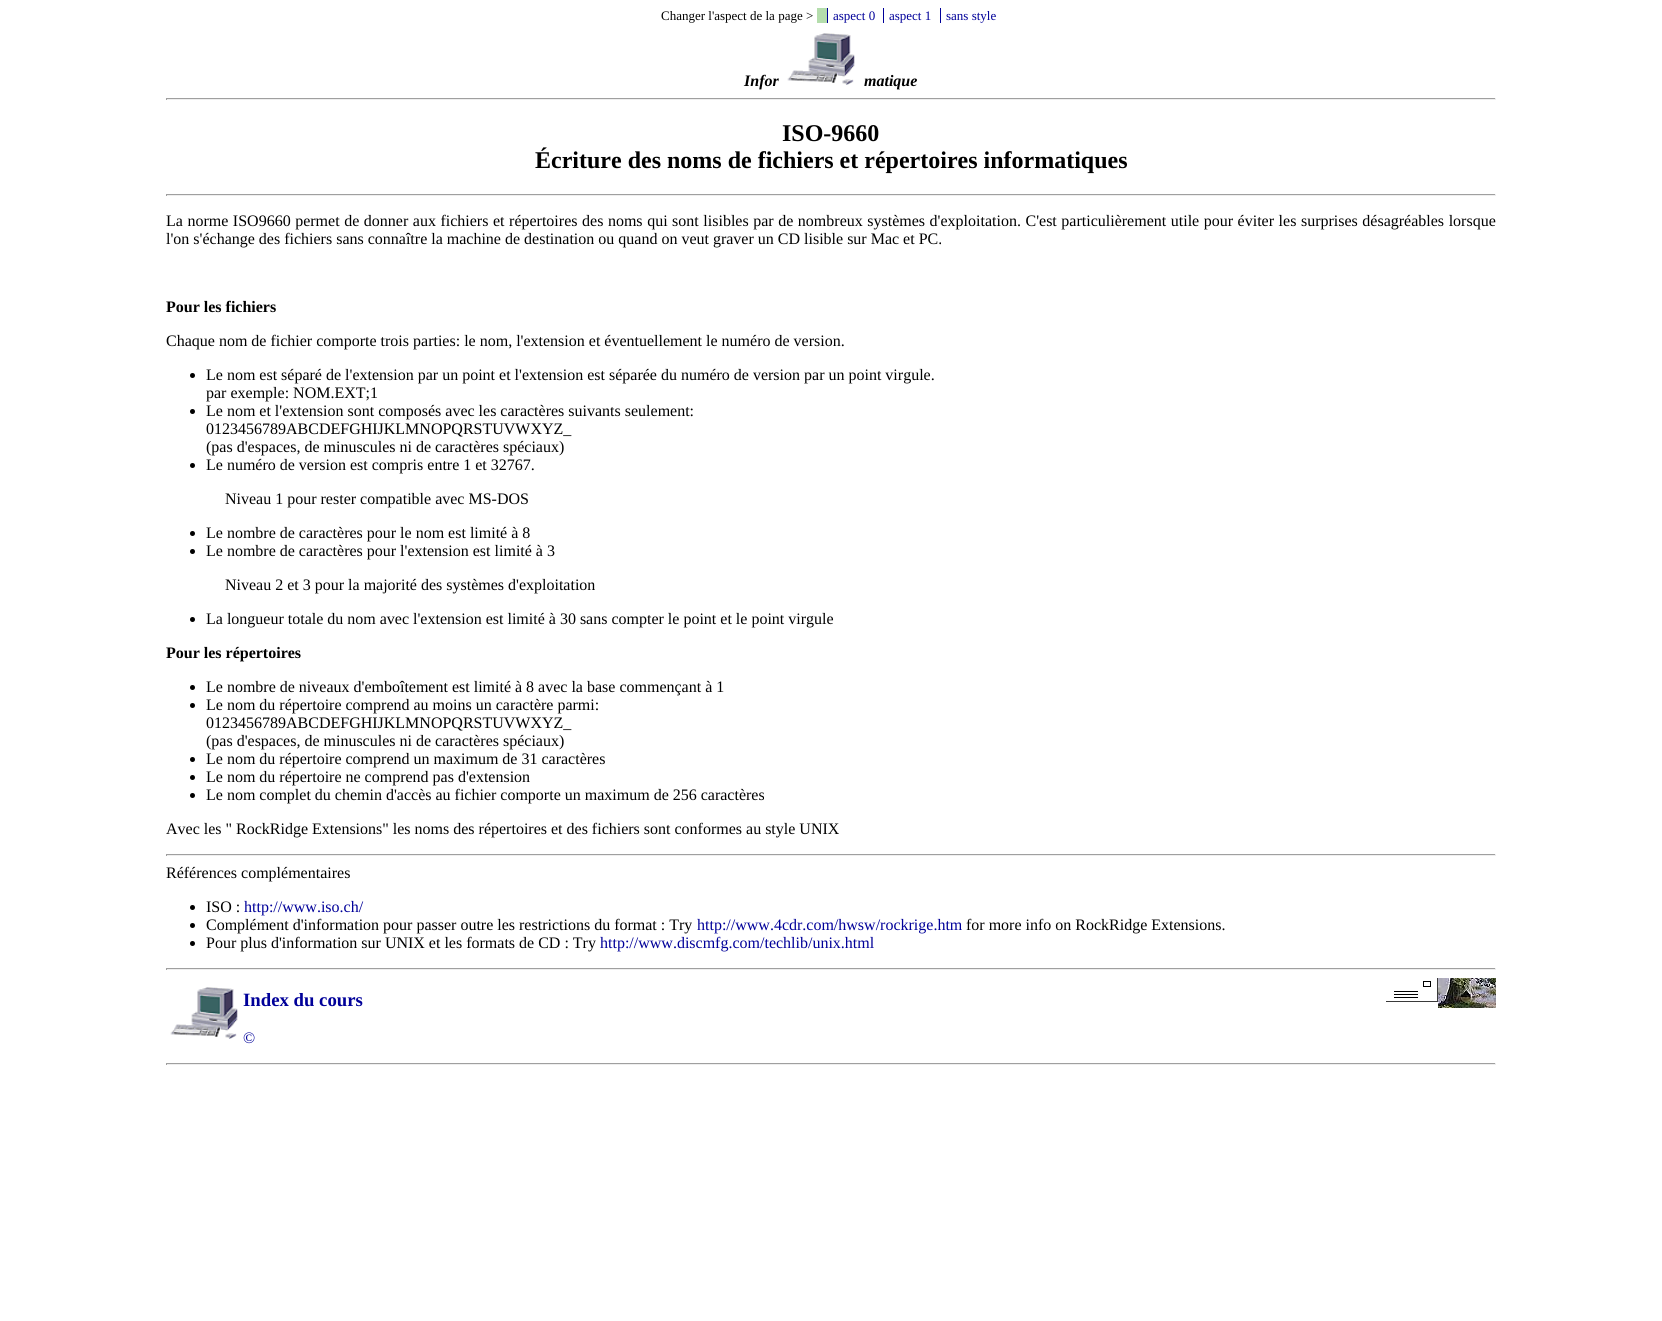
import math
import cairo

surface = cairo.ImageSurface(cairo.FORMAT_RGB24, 1662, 1321)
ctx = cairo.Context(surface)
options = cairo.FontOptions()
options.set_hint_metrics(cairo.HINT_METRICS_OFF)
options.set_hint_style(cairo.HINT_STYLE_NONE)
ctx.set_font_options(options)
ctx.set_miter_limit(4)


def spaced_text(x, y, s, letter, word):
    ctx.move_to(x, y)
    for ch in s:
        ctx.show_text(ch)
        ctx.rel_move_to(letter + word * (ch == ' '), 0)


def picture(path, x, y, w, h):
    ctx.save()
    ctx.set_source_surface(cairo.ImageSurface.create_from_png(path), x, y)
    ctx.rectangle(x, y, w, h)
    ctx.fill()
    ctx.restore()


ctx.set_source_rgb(1, 1, 1)
ctx.paint()
ctx.select_font_face("Liberation Serif")
ctx.set_font_size(13)
ctx.set_source_rgb(0, 0, 0)
ctx.move_to(661, 20)
ctx.show_text("Changer l'aspect de la page >")
ctx.set_source_rgb(0.706, 0.867, 0.675)
ctx.rectangle(817, 8, 10, 15)
ctx.fill()
ctx.set_source_rgb(0, 0, 0.6)
ctx.move_to(833, 20)
ctx.show_text("aspect 0")
ctx.rectangle(827, 8, 1, 15)
ctx.fill()
ctx.move_to(889, 20)
ctx.show_text("aspect 1")
ctx.rectangle(883, 8, 1, 15)
ctx.fill()
ctx.move_to(946, 20)
ctx.show_text("sans style")
ctx.rectangle(940, 8, 1, 15)
ctx.fill()
ctx.select_font_face("Liberation Serif", cairo.FONT_SLANT_ITALIC, cairo.FONT_WEIGHT_BOLD)
ctx.set_font_size(16)
ctx.set_source_rgb(0, 0, 0)
ctx.move_to(744, 86)
ctx.show_text("Infor")
picture("img1.png", 787, 33, 68, 52)
ctx.move_to(864, 86)
ctx.show_text("matique")
ctx.set_source_rgb(0.624, 0.624, 0.624)
ctx.rectangle(166, 98, 1330, 1)
ctx.fill()
ctx.set_source_rgb(0.933, 0.933, 0.933)
ctx.rectangle(1495, 98, 1, 2)
ctx.fill()
ctx.rectangle(166, 99, 1330, 1)
ctx.fill()
ctx.set_source_rgb(0.624, 0.624, 0.624)
ctx.rectangle(166, 98, 1, 2)
ctx.fill()
ctx.select_font_face("Liberation Serif", cairo.FONT_SLANT_NORMAL, cairo.FONT_WEIGHT_BOLD)
ctx.set_font_size(24)
ctx.set_source_rgb(0, 0, 0)
ctx.move_to(782, 141)
ctx.show_text("ISO-9660")
ctx.move_to(535, 168)
ctx.show_text("Écriture des noms de fichiers et répertoires informatiques")
ctx.set_source_rgb(0.624, 0.624, 0.624)
ctx.rectangle(166, 194, 1330, 1)
ctx.fill()
ctx.set_source_rgb(0.933, 0.933, 0.933)
ctx.rectangle(1495, 194, 1, 2)
ctx.fill()
ctx.rectangle(166, 195, 1330, 1)
ctx.fill()
ctx.set_source_rgb(0.624, 0.624, 0.624)
ctx.rectangle(166, 194, 1, 2)
ctx.fill()
ctx.select_font_face("Liberation Serif")
ctx.set_font_size(16)
ctx.set_source_rgb(0, 0, 0)
spaced_text(166, 226, "La norme ISO9660 permet de donner aux fichiers et répertoires des noms qui sont lisibles par de nombreux systèmes d'exploitation. C'est particulièrement utile pour éviter les surprises désagréables lorsque", 0, 0.55)
ctx.move_to(166, 244)
ctx.show_text("l'on s'échange des fichiers sans connaître la machine de destination ou quand on veut graver un CD lisible sur Mac et PC.")
ctx.select_font_face("Liberation Serif", cairo.FONT_SLANT_NORMAL, cairo.FONT_WEIGHT_BOLD)
ctx.move_to(166, 312)
ctx.show_text("Pour les fichiers")
ctx.select_font_face("Liberation Serif")
ctx.move_to(166, 346)
ctx.show_text("Chaque nom de fichier comporte trois parties: le nom, l'extension et éventuellement le numéro de version.")
ctx.new_path()
ctx.arc(192.5, 375.5, 2.5, 0, 2 * math.pi)
ctx.fill()
ctx.move_to(206, 380)
ctx.show_text("Le nom est séparé de l'extension par un point et l'extension est séparée du numéro de version par un point virgule.")
ctx.move_to(206, 398)
ctx.show_text("par exemple: NOM.EXT;1")
ctx.new_path()
ctx.arc(192.5, 411.5, 2.5, 0, 2 * math.pi)
ctx.fill()
ctx.move_to(206, 416)
ctx.show_text("Le nom et l'extension sont composés avec les caractères suivants seulement:")
ctx.move_to(206, 434)
ctx.show_text("0123456789ABCDEFGHIJKLMNOPQRSTUVWXYZ_")
ctx.move_to(206, 452)
ctx.show_text("(pas d'espaces, de minuscules ni de caractères spéciaux)")
ctx.new_path()
ctx.arc(192.5, 465.5, 2.5, 0, 2 * math.pi)
ctx.fill()
ctx.move_to(206, 470)
ctx.show_text("Le numéro de version est compris entre 1 et 32767.")
ctx.move_to(225, 504)
ctx.show_text("Niveau 1 pour rester compatible avec MS-DOS")
ctx.new_path()
ctx.arc(192.5, 533.5, 2.5, 0, 2 * math.pi)
ctx.fill()
ctx.move_to(206, 538)
ctx.show_text("Le nombre de caractères pour le nom est limité à 8")
ctx.new_path()
ctx.arc(192.5, 551.5, 2.5, 0, 2 * math.pi)
ctx.fill()
ctx.move_to(206, 556)
ctx.show_text("Le nombre de caractères pour l'extension est limité à 3")
ctx.move_to(225, 590)
ctx.show_text("Niveau 2 et 3 pour la majorité des systèmes d'exploitation")
ctx.new_path()
ctx.arc(192.5, 619.5, 2.5, 0, 2 * math.pi)
ctx.fill()
ctx.move_to(206, 624)
ctx.show_text("La longueur totale du nom avec l'extension est limité à 30 sans compter le point et le point virgule")
ctx.select_font_face("Liberation Serif", cairo.FONT_SLANT_NORMAL, cairo.FONT_WEIGHT_BOLD)
ctx.move_to(166, 658)
ctx.show_text("Pour les répertoires")
ctx.new_path()
ctx.arc(192.5, 687.5, 2.5, 0, 2 * math.pi)
ctx.fill()
ctx.select_font_face("Liberation Serif")
ctx.move_to(206, 692)
ctx.show_text("Le nombre de niveaux d'emboîtement est limité à 8 avec la base commençant à 1")
ctx.new_path()
ctx.arc(192.5, 705.5, 2.5, 0, 2 * math.pi)
ctx.fill()
ctx.move_to(206, 710)
ctx.show_text("Le nom du répertoire comprend au moins un caractère parmi:")
ctx.move_to(206, 728)
ctx.show_text("0123456789ABCDEFGHIJKLMNOPQRSTUVWXYZ_")
ctx.move_to(206, 746)
ctx.show_text("(pas d'espaces, de minuscules ni de caractères spéciaux)")
ctx.new_path()
ctx.arc(192.5, 759.5, 2.5, 0, 2 * math.pi)
ctx.fill()
ctx.move_to(206, 764)
ctx.show_text("Le nom du répertoire comprend un maximum de 31 caractères")
ctx.new_path()
ctx.arc(192.5, 777.5, 2.5, 0, 2 * math.pi)
ctx.fill()
ctx.move_to(206, 782)
ctx.show_text("Le nom du répertoire ne comprend pas d'extension")
ctx.new_path()
ctx.arc(192.5, 795.5, 2.5, 0, 2 * math.pi)
ctx.fill()
ctx.move_to(206, 800)
ctx.show_text("Le nom complet du chemin d'accès au fichier comporte un maximum de 256 caractères")
ctx.move_to(166, 834)
ctx.show_text("Avec les \" RockRidge Extensions\" les noms des répertoires et des fichiers sont conformes au style UNIX")
ctx.set_source_rgb(0.624, 0.624, 0.624)
ctx.rectangle(166, 854, 1330, 1)
ctx.fill()
ctx.set_source_rgb(0.933, 0.933, 0.933)
ctx.rectangle(1495, 854, 1, 2)
ctx.fill()
ctx.rectangle(166, 855, 1330, 1)
ctx.fill()
ctx.set_source_rgb(0.624, 0.624, 0.624)
ctx.rectangle(166, 854, 1, 2)
ctx.fill()
ctx.set_source_rgb(0, 0, 0)
ctx.move_to(166, 878)
ctx.show_text("Références complémentaires")
ctx.new_path()
ctx.arc(192.5, 907.5, 2.5, 0, 2 * math.pi)
ctx.fill()
ctx.move_to(206, 912)
ctx.show_text("ISO :")
ctx.set_source_rgb(0, 0, 0.6)
ctx.move_to(244, 912)
ctx.show_text("http://www.iso.ch/")
ctx.set_source_rgb(0, 0, 0)
ctx.new_path()
ctx.arc(192.5, 925.5, 2.5, 0, 2 * math.pi)
ctx.fill()
ctx.move_to(206, 930)
ctx.show_text("Complément d'information pour passer outre les restrictions du format : Try")
ctx.set_source_rgb(0, 0, 0.6)
ctx.move_to(697, 930)
ctx.show_text("http://www.4cdr.com/hwsw/rockrige.htm")
ctx.set_source_rgb(0, 0, 0)
ctx.move_to(966, 930)
ctx.show_text("for more info on RockRidge Extensions.")
ctx.new_path()
ctx.arc(192.5, 943.5, 2.5, 0, 2 * math.pi)
ctx.fill()
ctx.move_to(206, 948)
ctx.show_text("Pour plus d'information sur UNIX et les formats de CD : Try")
ctx.set_source_rgb(0, 0, 0.6)
ctx.move_to(600, 948)
ctx.show_text("http://www.discmfg.com/techlib/unix.html")
ctx.set_source_rgb(0.624, 0.624, 0.624)
ctx.rectangle(166, 968, 1330, 1)
ctx.fill()
ctx.set_source_rgb(0.933, 0.933, 0.933)
ctx.rectangle(1495, 968, 1, 2)
ctx.fill()
ctx.rectangle(166, 969, 1330, 1)
ctx.fill()
ctx.set_source_rgb(0.624, 0.624, 0.624)
ctx.rectangle(166, 968, 1, 2)
ctx.fill()
picture("img1.png", 170, 987, 68, 52)
ctx.select_font_face("Liberation Serif", cairo.FONT_SLANT_NORMAL, cairo.FONT_WEIGHT_BOLD)
ctx.set_font_size(18.75)
ctx.set_source_rgb(0, 0, 0.6)
ctx.move_to(243, 1006)
ctx.show_text("Index du cours")
picture("img2.png", 1386, 978, 52, 24)
picture("img3.png", 1438, 978, 58, 30)
ctx.select_font_face("Liberation Serif")
ctx.set_font_size(16)
ctx.move_to(243, 1043)
ctx.show_text("©")
ctx.set_source_rgb(0.624, 0.624, 0.624)
ctx.rectangle(166, 1063, 1330, 1)
ctx.fill()
ctx.set_source_rgb(0.933, 0.933, 0.933)
ctx.rectangle(1495, 1063, 1, 2)
ctx.fill()
ctx.rectangle(166, 1064, 1330, 1)
ctx.fill()
ctx.set_source_rgb(0.624, 0.624, 0.624)
ctx.rectangle(166, 1063, 1, 2)
ctx.fill()
surface.write_to_png("page.png")
